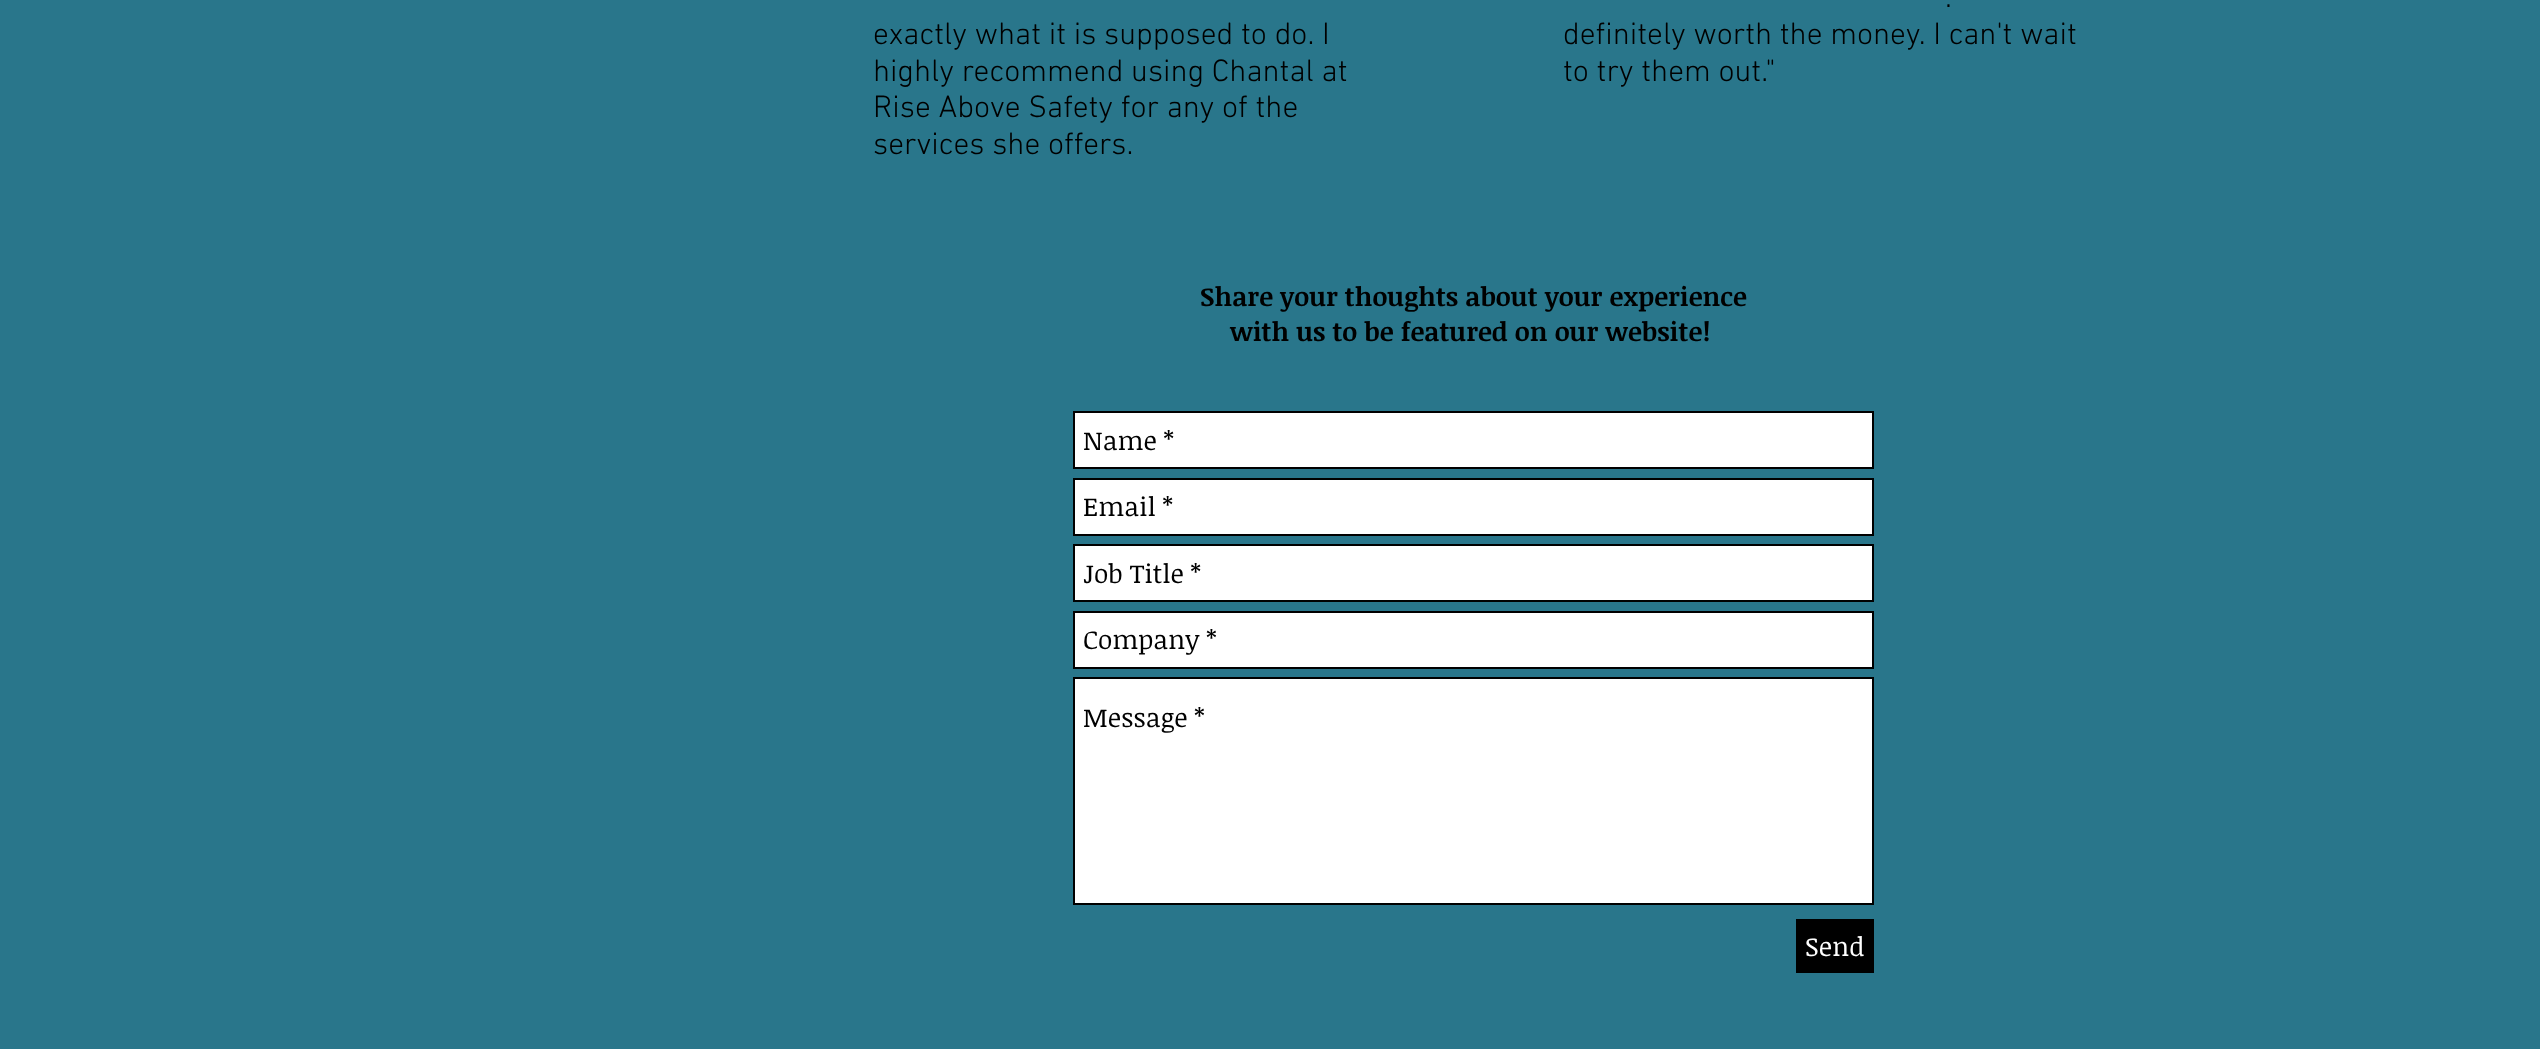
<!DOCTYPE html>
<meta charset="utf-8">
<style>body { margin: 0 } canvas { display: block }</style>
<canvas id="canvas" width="2540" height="1049"></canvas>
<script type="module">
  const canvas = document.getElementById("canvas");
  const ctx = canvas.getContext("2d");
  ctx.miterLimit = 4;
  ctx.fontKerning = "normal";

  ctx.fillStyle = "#29768b";
  ctx.fillRect(0, 0, 2540, 1049);
  ctx.font = "300 31.5px 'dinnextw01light'";
  ctx.fillStyle = "#000000";
  ctx.fillText("exactly what it is supposed to do. I", 873, 44);
  ctx.fillText("highly recommend using Chantal at", 873, 81);
  ctx.fillText("Rise Above Safety for any of the", 873, 117);
  ctx.fillText("services she offers.", 873, 154);
  ctx.fillText(".", 1945, 7);
  ctx.fillText("definitely worth the money. I can't wait", 1563, 44);
  ctx.fillText("to try them out.\"", 1563, 81);
  ctx.font = "bold 26.25px Noticia Text";
  ctx.fillText("Share your thoughts about your experience", 1200, 306);
  ctx.fillText("with us to be featured on our website!", 1230, 341);
  ctx.fillStyle = "#ffffff";
  ctx.beginPath();
  ctx.rect(1074, 412, 799, 56);
  ctx.fill();
  ctx.strokeStyle = "#000000";
  ctx.lineWidth = 2;
  ctx.stroke();
  ctx.font = "26.25px Noticia Text";
  ctx.fillStyle = "#000000";
  ctx.fillText("Name *", 1083, 450);
  ctx.fillStyle = "#ffffff";
  ctx.beginPath();
  ctx.rect(1074, 479, 799, 56);
  ctx.fill();
  ctx.stroke();
  ctx.fillStyle = "#000000";
  ctx.fillText("Email *", 1083, 516);
  ctx.fillStyle = "#ffffff";
  ctx.beginPath();
  ctx.rect(1074, 545, 799, 56);
  ctx.fill();
  ctx.stroke();
  ctx.fillStyle = "#000000";
  ctx.fillText("Job Title *", 1083, 583);
  ctx.fillStyle = "#ffffff";
  ctx.beginPath();
  ctx.rect(1074, 612, 799, 56);
  ctx.fill();
  ctx.stroke();
  ctx.fillStyle = "#000000";
  ctx.fillText("Company *", 1083, 649);
  ctx.fillStyle = "#ffffff";
  ctx.beginPath();
  ctx.rect(1074, 678, 799, 226);
  ctx.fill();
  ctx.stroke();
  ctx.fillStyle = "#000000";
  ctx.fillText("Message *", 1083, 727);
  ctx.fillRect(1796, 919, 78, 54);
  ctx.fillStyle = "#ffffff";
  ctx.fillText("Send", 1805, 956);
</script>
